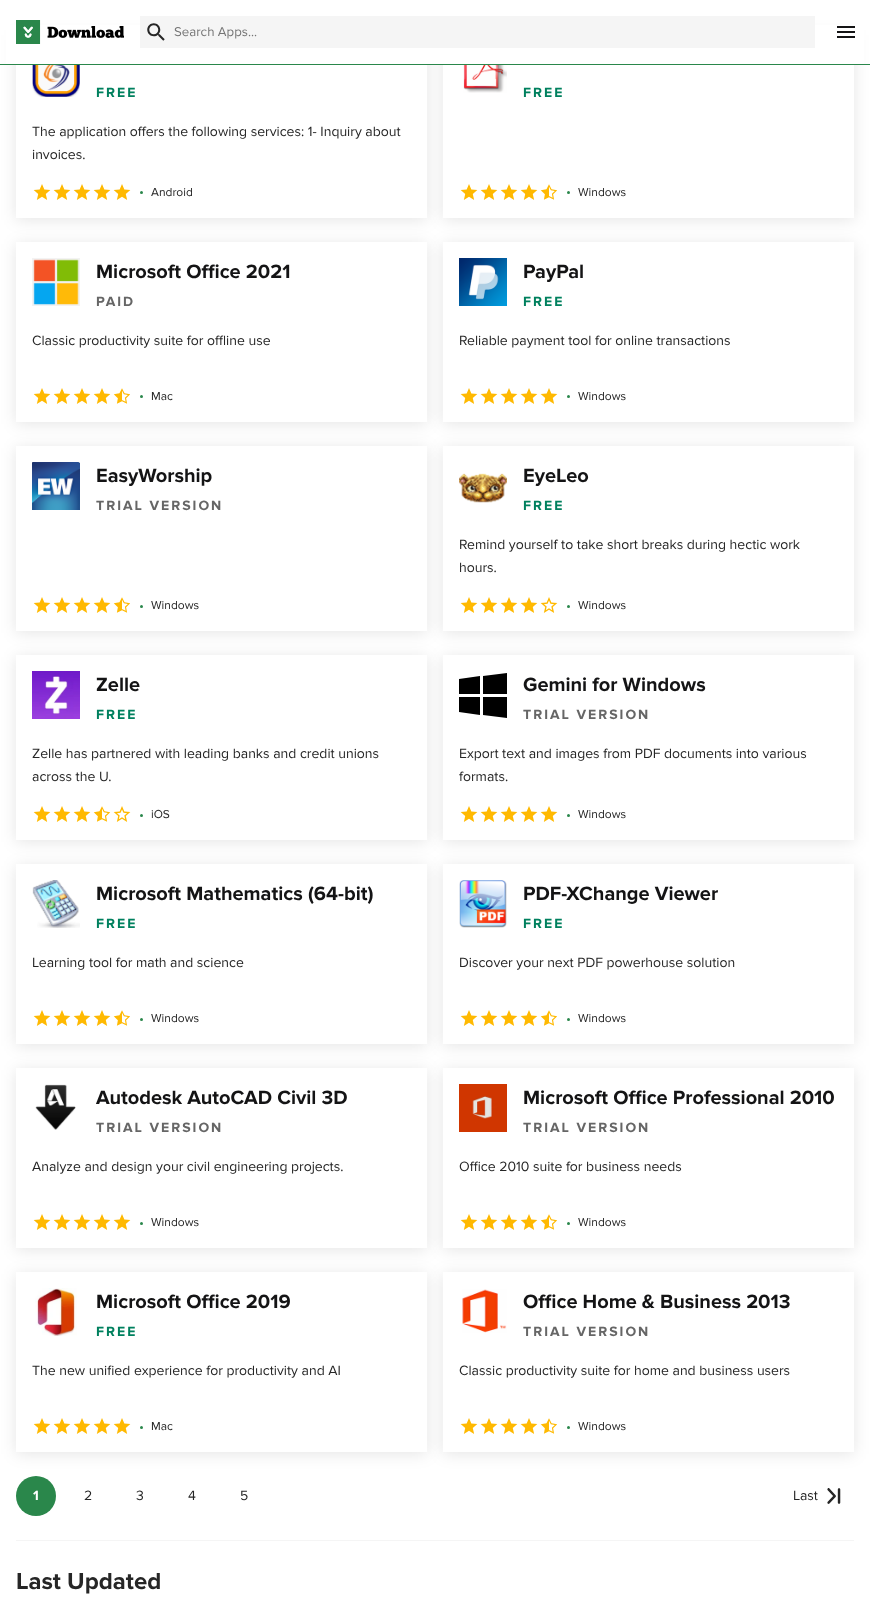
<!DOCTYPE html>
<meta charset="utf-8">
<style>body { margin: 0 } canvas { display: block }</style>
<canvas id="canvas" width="870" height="1606"></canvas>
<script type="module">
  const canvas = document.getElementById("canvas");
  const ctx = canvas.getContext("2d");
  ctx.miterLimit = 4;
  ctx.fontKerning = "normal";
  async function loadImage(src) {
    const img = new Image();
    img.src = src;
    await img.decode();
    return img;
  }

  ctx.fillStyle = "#ffffff";
  ctx.fillRect(0, 0, 870, 1606);
  ctx.save();
  ctx.beginPath();
  ctx.moveTo(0, 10);
  ctx.lineTo(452, 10);
  ctx.lineTo(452, 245);
  ctx.lineTo(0, 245);
  ctx.closePath();
  ctx.moveTo(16, 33);
  ctx.lineTo(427, 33);
  ctx.lineTo(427, 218);
  ctx.lineTo(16, 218);
  ctx.closePath();
  ctx.clip("evenodd");
  ctx.fillStyle = "rgba(0, 0, 0, 0.1)";
  ctx.filter = "blur(8px)";
  ctx.beginPath();
  ctx.rect(16, 35, 411, 185);
  ctx.fill();
  ctx.filter = "none";
  ctx.restore();
  ctx.save();
  ctx.beginPath();
  ctx.moveTo(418, 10);
  ctx.lineTo(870, 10);
  ctx.lineTo(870, 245);
  ctx.lineTo(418, 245);
  ctx.closePath();
  ctx.moveTo(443, 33);
  ctx.lineTo(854, 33);
  ctx.lineTo(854, 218);
  ctx.lineTo(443, 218);
  ctx.closePath();
  ctx.clip("evenodd");
  ctx.fillStyle = "rgba(0, 0, 0, 0.1)";
  ctx.filter = "blur(8px)";
  ctx.beginPath();
  ctx.rect(443, 35, 411, 185);
  ctx.fill();
  ctx.filter = "none";
  ctx.restore();
  ctx.fillRect(6, 25, 858, 39);
  ctx.fillStyle = "#2a874b";
  ctx.fillRect(0, 64, 870, 1);
  ctx.drawImage(await loadImage("img1.png"), 16, 20, 108, 24);
  ctx.fillStyle = "#f5f5f5";
  ctx.fillRect(140, 16, 675, 32);
  ctx.drawImage(await loadImage("img2.png"), 147, 23, 18, 18);
  ctx.font = "13.25px Proxima Nova";
  ctx.fillStyle = "#757575";
  ctx.fillText("Search Apps...", 174, 36);
  ctx.drawImage(await loadImage("img3.png"), 837, 26, 18, 12);
  ctx.drawImage(await loadImage("img4.png"), 32, 65, 48, 32);
  ctx.letterSpacing = "2px";
  ctx.font = "bold 14px Proxima Nova";
  ctx.fillStyle = "#00805e";
  ctx.fillText("FREE", 96, 97);
  ctx.letterSpacing = "0px";
  ctx.font = "14px Proxima Nova";
  ctx.fillStyle = "#262626";
  ctx.fillText("The application offers the following services: 1- Inquiry about", 32, 136);
  ctx.fillText("invoices.", 32, 159);
  ctx.drawImage(await loadImage("img5.png"), 33, 184, 98, 16);
  ctx.fillStyle = "#2a874b";
  ctx.beginPath();
  ctx.arc(141.5, 192.5, 1.5, 0, Math.PI * 2);
  ctx.fill();
  ctx.font = "12px Proxima Nova";
  ctx.fillStyle = "#262626";
  ctx.fillText("Android", 151, 196);
  ctx.drawImage(await loadImage("img6.png"), 463, 65, 44, 28);
  ctx.letterSpacing = "2px";
  ctx.font = "bold 14px Proxima Nova";
  ctx.fillStyle = "#00805e";
  ctx.fillText("FREE", 523, 97);
  ctx.drawImage(await loadImage("img7.png"), 460, 184, 97, 16);
  ctx.fillStyle = "#2a874b";
  ctx.beginPath();
  ctx.arc(568.5, 192.5, 1.5, 0, Math.PI * 2);
  ctx.fill();
  ctx.letterSpacing = "0px";
  ctx.font = "12px Proxima Nova";
  ctx.fillStyle = "#262626";
  ctx.fillText("Windows", 578, 196);
  ctx.save();
  ctx.beginPath();
  ctx.moveTo(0, 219);
  ctx.lineTo(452, 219);
  ctx.lineTo(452, 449);
  ctx.lineTo(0, 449);
  ctx.closePath();
  ctx.moveTo(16, 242);
  ctx.lineTo(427, 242);
  ctx.lineTo(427, 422);
  ctx.lineTo(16, 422);
  ctx.closePath();
  ctx.clip("evenodd");
  ctx.fillStyle = "rgba(0, 0, 0, 0.1)";
  ctx.filter = "blur(8px)";
  ctx.beginPath();
  ctx.rect(16, 244, 411, 180);
  ctx.fill();
  ctx.filter = "none";
  ctx.restore();
  ctx.drawImage(await loadImage("img8.png"), 32, 258, 48, 48);
  ctx.font = "bold 20px Proxima Nova";
  ctx.fillStyle = "#141415";
  ctx.fillText("Microsoft Office 2021", 96, 278);
  ctx.letterSpacing = "2px";
  ctx.font = "bold 14px Proxima Nova";
  ctx.fillStyle = "#666666";
  ctx.fillText("PAID", 96, 306);
  ctx.letterSpacing = "0px";
  ctx.font = "14px Proxima Nova";
  ctx.fillStyle = "#262626";
  ctx.fillText("Classic productivity suite for offline use", 32, 345);
  ctx.drawImage(await loadImage("img9.png"), 33, 388, 97, 16);
  ctx.fillStyle = "#2a874b";
  ctx.beginPath();
  ctx.arc(141.5, 396.5, 1.5, 0, Math.PI * 2);
  ctx.fill();
  ctx.font = "12px Proxima Nova";
  ctx.fillStyle = "#262626";
  ctx.fillText("Mac", 151, 400);
  ctx.save();
  ctx.beginPath();
  ctx.moveTo(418, 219);
  ctx.lineTo(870, 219);
  ctx.lineTo(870, 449);
  ctx.lineTo(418, 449);
  ctx.closePath();
  ctx.moveTo(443, 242);
  ctx.lineTo(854, 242);
  ctx.lineTo(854, 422);
  ctx.lineTo(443, 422);
  ctx.closePath();
  ctx.clip("evenodd");
  ctx.fillStyle = "rgba(0, 0, 0, 0.1)";
  ctx.filter = "blur(8px)";
  ctx.beginPath();
  ctx.rect(443, 244, 411, 180);
  ctx.fill();
  ctx.filter = "none";
  ctx.restore();
  ctx.drawImage(await loadImage("img10.png"), 459, 258, 48, 48);
  ctx.font = "bold 20px Proxima Nova";
  ctx.fillStyle = "#141415";
  ctx.fillText("PayPal", 523, 278);
  ctx.letterSpacing = "2px";
  ctx.font = "bold 14px Proxima Nova";
  ctx.fillStyle = "#00805e";
  ctx.fillText("FREE", 523, 306);
  ctx.letterSpacing = "0px";
  ctx.font = "14px Proxima Nova";
  ctx.fillStyle = "#262626";
  ctx.fillText("Reliable payment tool for online transactions", 459, 345);
  ctx.drawImage(await loadImage("img11.png"), 460, 388, 98, 16);
  ctx.fillStyle = "#2a874b";
  ctx.beginPath();
  ctx.arc(568.5, 396.5, 1.5, 0, Math.PI * 2);
  ctx.fill();
  ctx.font = "12px Proxima Nova";
  ctx.fillStyle = "#262626";
  ctx.fillText("Windows", 578, 400);
  ctx.save();
  ctx.beginPath();
  ctx.moveTo(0, 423);
  ctx.lineTo(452, 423);
  ctx.lineTo(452, 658);
  ctx.lineTo(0, 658);
  ctx.closePath();
  ctx.moveTo(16, 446);
  ctx.lineTo(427, 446);
  ctx.lineTo(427, 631);
  ctx.lineTo(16, 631);
  ctx.closePath();
  ctx.clip("evenodd");
  ctx.fillStyle = "rgba(0, 0, 0, 0.1)";
  ctx.filter = "blur(8px)";
  ctx.beginPath();
  ctx.rect(16, 448, 411, 185);
  ctx.fill();
  ctx.filter = "none";
  ctx.restore();
  ctx.drawImage(await loadImage("img12.png"), 32, 462, 48, 48);
  ctx.font = "bold 20px Proxima Nova";
  ctx.fillStyle = "#141415";
  ctx.fillText("EasyWorship", 96, 482);
  ctx.letterSpacing = "2px";
  ctx.font = "bold 14px Proxima Nova";
  ctx.fillStyle = "#666666";
  ctx.fillText("TRIAL VERSION", 96, 510);
  ctx.drawImage(await loadImage("img9.png"), 33, 597, 97, 16);
  ctx.fillStyle = "#2a874b";
  ctx.beginPath();
  ctx.arc(141.5, 606.5, 1.5, 0, Math.PI * 2);
  ctx.fill();
  ctx.letterSpacing = "0px";
  ctx.font = "12px Proxima Nova";
  ctx.fillStyle = "#262626";
  ctx.fillText("Windows", 151, 609);
  ctx.save();
  ctx.beginPath();
  ctx.moveTo(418, 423);
  ctx.lineTo(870, 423);
  ctx.lineTo(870, 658);
  ctx.lineTo(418, 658);
  ctx.closePath();
  ctx.moveTo(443, 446);
  ctx.lineTo(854, 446);
  ctx.lineTo(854, 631);
  ctx.lineTo(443, 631);
  ctx.closePath();
  ctx.clip("evenodd");
  ctx.fillStyle = "rgba(0, 0, 0, 0.1)";
  ctx.filter = "blur(8px)";
  ctx.beginPath();
  ctx.rect(443, 448, 411, 185);
  ctx.fill();
  ctx.filter = "none";
  ctx.restore();
  ctx.drawImage(await loadImage("img13.png"), 459, 473, 48, 30);
  ctx.font = "bold 20px Proxima Nova";
  ctx.fillStyle = "#141415";
  ctx.fillText("EyeLeo", 523, 482);
  ctx.letterSpacing = "2px";
  ctx.font = "bold 14px Proxima Nova";
  ctx.fillStyle = "#00805e";
  ctx.fillText("FREE", 523, 510);
  ctx.letterSpacing = "0px";
  ctx.font = "14px Proxima Nova";
  ctx.fillStyle = "#262626";
  ctx.fillText("Remind yourself to take short breaks during hectic work", 459, 549);
  ctx.fillText("hours.", 459, 572);
  ctx.drawImage(await loadImage("img14.png"), 460, 597, 98, 16);
  ctx.fillStyle = "#2a874b";
  ctx.beginPath();
  ctx.arc(568.5, 606.5, 1.5, 0, Math.PI * 2);
  ctx.fill();
  ctx.font = "12px Proxima Nova";
  ctx.fillStyle = "#262626";
  ctx.fillText("Windows", 578, 609);
  ctx.save();
  ctx.beginPath();
  ctx.moveTo(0, 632);
  ctx.lineTo(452, 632);
  ctx.lineTo(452, 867);
  ctx.lineTo(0, 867);
  ctx.closePath();
  ctx.moveTo(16, 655);
  ctx.lineTo(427, 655);
  ctx.lineTo(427, 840);
  ctx.lineTo(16, 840);
  ctx.closePath();
  ctx.clip("evenodd");
  ctx.fillStyle = "rgba(0, 0, 0, 0.1)";
  ctx.filter = "blur(8px)";
  ctx.beginPath();
  ctx.rect(16, 657, 411, 185);
  ctx.fill();
  ctx.filter = "none";
  ctx.restore();
  ctx.drawImage(await loadImage("img15.png"), 32, 671, 48, 48);
  ctx.font = "bold 20px Proxima Nova";
  ctx.fillStyle = "#141415";
  ctx.fillText("Zelle", 96, 691);
  ctx.letterSpacing = "2px";
  ctx.font = "bold 14px Proxima Nova";
  ctx.fillStyle = "#00805e";
  ctx.fillText("FREE", 96, 719);
  ctx.letterSpacing = "0px";
  ctx.font = "14px Proxima Nova";
  ctx.fillStyle = "#262626";
  ctx.fillText("Zelle has partnered with leading banks and credit unions", 32, 758);
  ctx.fillText("across the U.", 32, 781);
  ctx.drawImage(await loadImage("img16.png"), 33, 806, 98, 16);
  ctx.fillStyle = "#2a874b";
  ctx.beginPath();
  ctx.arc(141.5, 815.5, 1.5, 0, Math.PI * 2);
  ctx.fill();
  ctx.font = "12px Proxima Nova";
  ctx.fillStyle = "#262626";
  ctx.fillText("iOS", 151, 818);
  ctx.save();
  ctx.beginPath();
  ctx.moveTo(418, 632);
  ctx.lineTo(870, 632);
  ctx.lineTo(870, 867);
  ctx.lineTo(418, 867);
  ctx.closePath();
  ctx.moveTo(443, 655);
  ctx.lineTo(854, 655);
  ctx.lineTo(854, 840);
  ctx.lineTo(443, 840);
  ctx.closePath();
  ctx.clip("evenodd");
  ctx.fillStyle = "rgba(0, 0, 0, 0.1)";
  ctx.filter = "blur(8px)";
  ctx.beginPath();
  ctx.rect(443, 657, 411, 185);
  ctx.fill();
  ctx.filter = "none";
  ctx.restore();
  ctx.fillStyle = "#000000";
  ctx.beginPath();
  ctx.moveTo(483, 694);
  ctx.lineTo(483, 676);
  ctx.lineTo(507, 673);
  ctx.lineTo(507, 694);
  ctx.closePath();
  ctx.moveTo(459, 694);
  ctx.lineTo(459, 679);
  ctx.lineTo(480, 676);
  ctx.lineTo(480, 694);
  ctx.closePath();
  ctx.moveTo(483, 697);
  ctx.lineTo(483, 715);
  ctx.lineTo(507, 718);
  ctx.lineTo(507, 697);
  ctx.closePath();
  ctx.moveTo(459, 712);
  ctx.lineTo(459, 697);
  ctx.lineTo(480, 697);
  ctx.lineTo(480, 715);
  ctx.closePath();
  ctx.fill();
  ctx.font = "bold 20px Proxima Nova";
  ctx.fillStyle = "#141415";
  ctx.fillText("Gemini for Windows", 523, 691);
  ctx.letterSpacing = "2px";
  ctx.font = "bold 14px Proxima Nova";
  ctx.fillStyle = "#666666";
  ctx.fillText("TRIAL VERSION", 523, 719);
  ctx.letterSpacing = "0px";
  ctx.font = "14px Proxima Nova";
  ctx.fillStyle = "#262626";
  ctx.fillText("Export text and images from PDF documents into various", 459, 758);
  ctx.fillText("formats.", 459, 781);
  ctx.drawImage(await loadImage("img17.png"), 460, 806, 98, 16);
  ctx.fillStyle = "#2a874b";
  ctx.beginPath();
  ctx.arc(568.5, 815.5, 1.5, 0, Math.PI * 2);
  ctx.fill();
  ctx.font = "12px Proxima Nova";
  ctx.fillStyle = "#262626";
  ctx.fillText("Windows", 578, 818);
  ctx.save();
  ctx.beginPath();
  ctx.moveTo(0, 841);
  ctx.lineTo(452, 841);
  ctx.lineTo(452, 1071);
  ctx.lineTo(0, 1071);
  ctx.closePath();
  ctx.moveTo(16, 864);
  ctx.lineTo(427, 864);
  ctx.lineTo(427, 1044);
  ctx.lineTo(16, 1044);
  ctx.closePath();
  ctx.clip("evenodd");
  ctx.fillStyle = "rgba(0, 0, 0, 0.1)";
  ctx.filter = "blur(8px)";
  ctx.beginPath();
  ctx.rect(16, 866, 411, 180);
  ctx.fill();
  ctx.filter = "none";
  ctx.restore();
  ctx.drawImage(await loadImage("img18.png"), 32, 880, 48, 48);
  ctx.font = "bold 20px Proxima Nova";
  ctx.fillStyle = "#141415";
  ctx.fillText("Microsoft Mathematics (64-bit)", 96, 900);
  ctx.letterSpacing = "2px";
  ctx.font = "bold 14px Proxima Nova";
  ctx.fillStyle = "#00805e";
  ctx.fillText("FREE", 96, 928);
  ctx.letterSpacing = "0px";
  ctx.font = "14px Proxima Nova";
  ctx.fillStyle = "#262626";
  ctx.fillText("Learning tool for math and science", 32, 967);
  ctx.drawImage(await loadImage("img9.png"), 33, 1010, 97, 16);
  ctx.fillStyle = "#2a874b";
  ctx.beginPath();
  ctx.arc(141.5, 1019.5, 1.5, 0, Math.PI * 2);
  ctx.fill();
  ctx.font = "12px Proxima Nova";
  ctx.fillStyle = "#262626";
  ctx.fillText("Windows", 151, 1022);
  ctx.save();
  ctx.beginPath();
  ctx.moveTo(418, 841);
  ctx.lineTo(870, 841);
  ctx.lineTo(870, 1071);
  ctx.lineTo(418, 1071);
  ctx.closePath();
  ctx.moveTo(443, 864);
  ctx.lineTo(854, 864);
  ctx.lineTo(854, 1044);
  ctx.lineTo(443, 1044);
  ctx.closePath();
  ctx.clip("evenodd");
  ctx.fillStyle = "rgba(0, 0, 0, 0.1)";
  ctx.filter = "blur(8px)";
  ctx.beginPath();
  ctx.rect(443, 866, 411, 180);
  ctx.fill();
  ctx.filter = "none";
  ctx.restore();
  ctx.drawImage(await loadImage("img19.png"), 459, 880, 48, 48);
  ctx.font = "bold 20px Proxima Nova";
  ctx.fillStyle = "#141415";
  ctx.fillText("PDF-XChange Viewer", 523, 900);
  ctx.letterSpacing = "2px";
  ctx.font = "bold 14px Proxima Nova";
  ctx.fillStyle = "#00805e";
  ctx.fillText("FREE", 523, 928);
  ctx.letterSpacing = "0px";
  ctx.font = "14px Proxima Nova";
  ctx.fillStyle = "#262626";
  ctx.fillText("Discover your next PDF powerhouse solution", 459, 967);
  ctx.drawImage(await loadImage("img7.png"), 460, 1010, 97, 16);
  ctx.fillStyle = "#2a874b";
  ctx.beginPath();
  ctx.arc(568.5, 1019.5, 1.5, 0, Math.PI * 2);
  ctx.fill();
  ctx.font = "12px Proxima Nova";
  ctx.fillStyle = "#262626";
  ctx.fillText("Windows", 578, 1022);
  ctx.save();
  ctx.beginPath();
  ctx.moveTo(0, 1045);
  ctx.lineTo(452, 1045);
  ctx.lineTo(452, 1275);
  ctx.lineTo(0, 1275);
  ctx.closePath();
  ctx.moveTo(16, 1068);
  ctx.lineTo(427, 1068);
  ctx.lineTo(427, 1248);
  ctx.lineTo(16, 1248);
  ctx.closePath();
  ctx.clip("evenodd");
  ctx.fillStyle = "rgba(0, 0, 0, 0.1)";
  ctx.filter = "blur(8px)";
  ctx.beginPath();
  ctx.rect(16, 1070, 411, 180);
  ctx.fill();
  ctx.filter = "none";
  ctx.restore();
  ctx.drawImage(await loadImage("img20.png"), 35, 1084, 41, 46);
  ctx.font = "bold 20px Proxima Nova";
  ctx.fillStyle = "#141415";
  ctx.fillText("Autodesk AutoCAD Civil 3D", 96, 1104);
  ctx.letterSpacing = "2px";
  ctx.font = "bold 14px Proxima Nova";
  ctx.fillStyle = "#666666";
  ctx.fillText("TRIAL VERSION", 96, 1132);
  ctx.letterSpacing = "0px";
  ctx.font = "14px Proxima Nova";
  ctx.fillStyle = "#262626";
  ctx.fillText("Analyze and design your civil engineering projects.", 32, 1171);
  ctx.drawImage(await loadImage("img5.png"), 33, 1214, 98, 16);
  ctx.fillStyle = "#2a874b";
  ctx.beginPath();
  ctx.arc(141.5, 1223.5, 1.5, 0, Math.PI * 2);
  ctx.fill();
  ctx.font = "12px Proxima Nova";
  ctx.fillStyle = "#262626";
  ctx.fillText("Windows", 151, 1226);
  ctx.save();
  ctx.beginPath();
  ctx.moveTo(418, 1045);
  ctx.lineTo(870, 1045);
  ctx.lineTo(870, 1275);
  ctx.lineTo(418, 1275);
  ctx.closePath();
  ctx.moveTo(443, 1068);
  ctx.lineTo(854, 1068);
  ctx.lineTo(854, 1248);
  ctx.lineTo(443, 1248);
  ctx.closePath();
  ctx.clip("evenodd");
  ctx.fillStyle = "rgba(0, 0, 0, 0.1)";
  ctx.filter = "blur(8px)";
  ctx.beginPath();
  ctx.rect(443, 1070, 411, 180);
  ctx.fill();
  ctx.filter = "none";
  ctx.restore();
  ctx.drawImage(await loadImage("img21.png"), 459, 1084, 48, 48);
  ctx.font = "bold 20px Proxima Nova";
  ctx.fillStyle = "#141415";
  ctx.fillText("Microsoft Office Professional 2010", 523, 1104);
  ctx.letterSpacing = "2px";
  ctx.font = "bold 14px Proxima Nova";
  ctx.fillStyle = "#666666";
  ctx.fillText("TRIAL VERSION", 523, 1132);
  ctx.letterSpacing = "0px";
  ctx.font = "14px Proxima Nova";
  ctx.fillStyle = "#262626";
  ctx.fillText("Office 2010 suite for business needs", 459, 1171);
  ctx.drawImage(await loadImage("img7.png"), 460, 1214, 97, 16);
  ctx.fillStyle = "#2a874b";
  ctx.beginPath();
  ctx.arc(568.5, 1223.5, 1.5, 0, Math.PI * 2);
  ctx.fill();
  ctx.font = "12px Proxima Nova";
  ctx.fillStyle = "#262626";
  ctx.fillText("Windows", 578, 1226);
  ctx.fillStyle = "#2a874b";
  ctx.beginPath();
  ctx.arc(36, 1496, 20, 0, Math.PI * 2);
  ctx.fill();
  ctx.save();
  ctx.beginPath();
  ctx.moveTo(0, 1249);
  ctx.lineTo(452, 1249);
  ctx.lineTo(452, 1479);
  ctx.lineTo(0, 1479);
  ctx.closePath();
  ctx.moveTo(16, 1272);
  ctx.lineTo(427, 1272);
  ctx.lineTo(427, 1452);
  ctx.lineTo(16, 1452);
  ctx.closePath();
  ctx.clip("evenodd");
  ctx.fillStyle = "rgba(0, 0, 0, 0.1)";
  ctx.filter = "blur(8px)";
  ctx.beginPath();
  ctx.rect(16, 1274, 411, 180);
  ctx.fill();
  ctx.filter = "none";
  ctx.restore();
  ctx.drawImage(await loadImage("img22.png"), 35, 1288, 42, 48);
  ctx.font = "bold 20px Proxima Nova";
  ctx.fillStyle = "#141415";
  ctx.fillText("Microsoft Office 2019", 96, 1308);
  ctx.letterSpacing = "2px";
  ctx.font = "bold 14px Proxima Nova";
  ctx.fillStyle = "#00805e";
  ctx.fillText("FREE", 96, 1336);
  ctx.letterSpacing = "0px";
  ctx.font = "14px Proxima Nova";
  ctx.fillStyle = "#262626";
  ctx.fillText("The new unified experience for productivity and AI", 32, 1375);
  ctx.drawImage(await loadImage("img5.png"), 33, 1418, 98, 16);
  ctx.fillStyle = "#2a874b";
  ctx.beginPath();
  ctx.arc(141.5, 1427.5, 1.5, 0, Math.PI * 2);
  ctx.fill();
  ctx.font = "12px Proxima Nova";
  ctx.fillStyle = "#262626";
  ctx.fillText("Mac", 151, 1430);
  ctx.save();
  ctx.beginPath();
  ctx.moveTo(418, 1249);
  ctx.lineTo(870, 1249);
  ctx.lineTo(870, 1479);
  ctx.lineTo(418, 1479);
  ctx.closePath();
  ctx.moveTo(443, 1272);
  ctx.lineTo(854, 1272);
  ctx.lineTo(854, 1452);
  ctx.lineTo(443, 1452);
  ctx.closePath();
  ctx.clip("evenodd");
  ctx.fillStyle = "rgba(0, 0, 0, 0.1)";
  ctx.filter = "blur(8px)";
  ctx.beginPath();
  ctx.rect(443, 1274, 411, 180);
  ctx.fill();
  ctx.filter = "none";
  ctx.restore();
  ctx.drawImage(await loadImage("img23.png"), 462, 1289, 45, 44);
  ctx.font = "bold 20px Proxima Nova";
  ctx.fillStyle = "#141415";
  ctx.fillText("Office Home & Business 2013", 523, 1308);
  ctx.letterSpacing = "2px";
  ctx.font = "bold 14px Proxima Nova";
  ctx.fillStyle = "#666666";
  ctx.fillText("TRIAL VERSION", 523, 1336);
  ctx.letterSpacing = "0px";
  ctx.font = "14px Proxima Nova";
  ctx.fillStyle = "#262626";
  ctx.fillText("Classic productivity suite for home and business users", 459, 1375);
  ctx.drawImage(await loadImage("img7.png"), 460, 1418, 97, 16);
  ctx.fillStyle = "#2a874b";
  ctx.beginPath();
  ctx.arc(568.5, 1427.5, 1.5, 0, Math.PI * 2);
  ctx.fill();
  ctx.font = "12px Proxima Nova";
  ctx.fillStyle = "#262626";
  ctx.fillText("Windows", 578, 1430);
  ctx.font = "bold 14px Proxima Nova";
  ctx.fillStyle = "#ffffff";
  ctx.fillText("1", 33, 1500);
  ctx.font = "14px Proxima Nova";
  ctx.fillStyle = "#262626";
  ctx.fillText("2", 84, 1500);
  ctx.fillText("3", 136, 1500);
  ctx.fillText("4", 188, 1500);
  ctx.fillText("5", 240, 1500);
  ctx.fillText("Last", 793, 1500);
  ctx.drawImage(await loadImage("img24.png"), 827, 1488, 14, 16);
  ctx.fillStyle = "#f5f5f5";
  ctx.fillRect(16, 1540, 838, 1);
  ctx.font = "bold 24px Proxima Nova";
  ctx.fillStyle = "#262626";
  ctx.fillText("Last Updated", 16, 1589);
</script>
